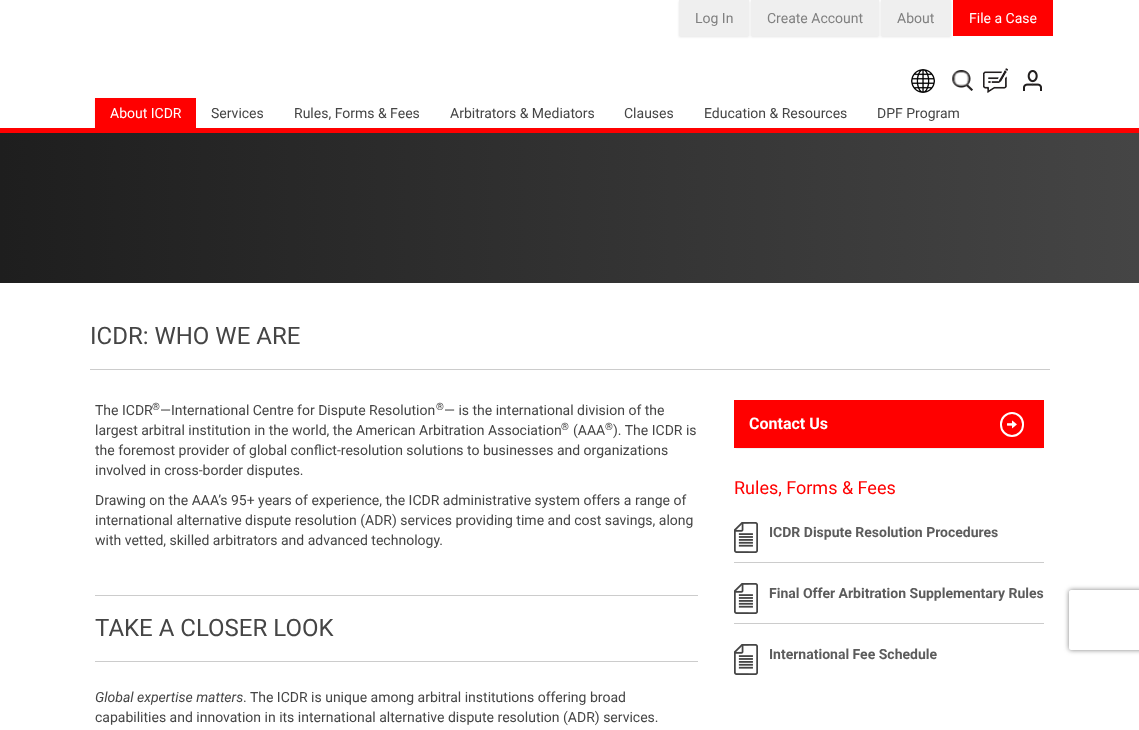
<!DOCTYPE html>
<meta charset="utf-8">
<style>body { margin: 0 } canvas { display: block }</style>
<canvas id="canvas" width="1139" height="730"></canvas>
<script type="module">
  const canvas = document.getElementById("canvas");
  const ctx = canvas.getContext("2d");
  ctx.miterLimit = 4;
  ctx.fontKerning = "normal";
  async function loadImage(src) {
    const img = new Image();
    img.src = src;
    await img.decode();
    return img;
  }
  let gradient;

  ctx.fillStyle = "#ffffff";
  ctx.fillRect(0, 0, 1139, 730);
  ctx.fillStyle = "#ff0000";
  ctx.fillRect(0, 128, 1139, 5);
  ctx.fillStyle = "rgba(0, 0, 0, 0.1)";
  ctx.filter = "blur(1px)";
  ctx.beginPath();
  ctx.rect(679, 1, 70, 36);
  ctx.fill();
  ctx.filter = "none";
  ctx.fillStyle = "#efefef";
  ctx.fillRect(679, 0, 70, 36);
  ctx.font = "14px Roboto";
  ctx.fillStyle = "#808080";
  ctx.fillText("Log In", 695, 23);
  ctx.fillStyle = "rgba(0, 0, 0, 0.1)";
  ctx.filter = "blur(1px)";
  ctx.beginPath();
  ctx.rect(751, 1, 128, 36);
  ctx.fill();
  ctx.filter = "none";
  ctx.fillStyle = "#efefef";
  ctx.fillRect(751, 0, 128, 36);
  ctx.fillStyle = "#808080";
  ctx.fillText("Create Account", 767, 23);
  ctx.fillStyle = "rgba(0, 0, 0, 0.1)";
  ctx.filter = "blur(1px)";
  ctx.beginPath();
  ctx.rect(881, 1, 70, 36);
  ctx.fill();
  ctx.filter = "none";
  ctx.fillStyle = "#efefef";
  ctx.fillRect(881, 0, 70, 36);
  ctx.fillStyle = "#808080";
  ctx.fillText("About", 897, 23);
  ctx.fillStyle = "#ff0000";
  ctx.fillRect(953, 0, 100, 36);
  ctx.fillStyle = "#ffffff";
  ctx.fillText("File a Case", 969, 23);
  ctx.drawImage(await loadImage("img1.png"), 911, 69, 24, 24);
  ctx.drawImage(await loadImage("img2.png"), 952, 70, 21, 21);
  ctx.drawImage(await loadImage("img3.png"), 983, 68, 25, 25);
  ctx.drawImage(await loadImage("img4.png"), 1023, 70, 19, 21);
  ctx.fillStyle = "rgba(255, 0, 0, 0.1)";
  ctx.filter = "blur(1px)";
  ctx.beginPath();
  ctx.rect(95, 99, 101, 30);
  ctx.fill();
  ctx.filter = "none";
  ctx.fillStyle = "#ff0000";
  ctx.fillRect(95, 98, 101, 30);
  ctx.fillStyle = "#ffffff";
  ctx.fillText("About ICDR", 110, 118);
  ctx.fillRect(196, 99, 1, 29);
  ctx.fillStyle = "#454545";
  ctx.fillText("Services", 211, 118);
  ctx.fillText("Rules, Forms & Fees", 294, 118);
  ctx.fillText("Arbitrators & Mediators", 450, 118);
  ctx.fillText("Clauses", 624, 118);
  ctx.fillText("Education & Resources", 704, 118);
  ctx.fillText("DPF Program", 877, 118);
  gradient = ctx.createLinearGradient(1139, 208, 0, 208);
  gradient.addColorStop(0, "#454545");
  gradient.addColorStop(1, "#1e1e1e");
  ctx.fillStyle = gradient;
  ctx.fillRect(0, 133, 1139, 150);
  ctx.fillStyle = "#cccccc";
  ctx.fillRect(90, 369, 960, 1);
  ctx.font = "24px Roboto";
  ctx.fillStyle = "#454545";
  ctx.fillText("ICDR: WHO WE ARE", 90, 344);
  ctx.font = "14px Roboto";
  ctx.fillText("The ICDR", 95, 415);
  ctx.font = "10px Roboto";
  ctx.fillText("®", 152, 410);
  ctx.font = "14px Roboto";
  ctx.fillText("—International Centre for Dispute Resolution", 160, 415);
  ctx.font = "10px Roboto";
  ctx.fillText("®", 436, 410);
  ctx.font = "14px Roboto";
  ctx.fillText("— is the international division of the", 444, 415);
  ctx.fillText("largest arbitral institution in the world, the American Arbitration Association", 95, 435);
  ctx.font = "10px Roboto";
  ctx.fillText("®", 561, 430);
  ctx.font = "14px Roboto";
  ctx.fillText("(AAA", 573, 435);
  ctx.font = "10px Roboto";
  ctx.fillText("®", 605, 430);
  ctx.font = "14px Roboto";
  ctx.fillText("). The ICDR is", 613, 435);
  ctx.fillText("the foremost provider of global conflict-resolution solutions to businesses and organizations", 95, 455);
  ctx.fillText("involved in cross-border disputes.", 95, 475);
  ctx.fillText("Drawing on the AAA’s 95+ years of experience, the ICDR administrative system offers a range of", 95, 505);
  ctx.fillText("international alternative dispute resolution (ADR) services providing time and cost savings, along", 95, 525);
  ctx.fillText("with vetted, skilled arbitrators and advanced technology.", 95, 545);
  ctx.fillStyle = "#cccccc";
  ctx.fillRect(95, 595, 603, 1);
  ctx.fillRect(95, 661, 603, 1);
  ctx.font = "24px Roboto";
  ctx.fillStyle = "#454545";
  ctx.fillText("TAKE A CLOSER LOOK", 95, 636);
  ctx.font = "italic 14px Roboto";
  ctx.fillText("Global expertise matters", 95, 702);
  ctx.font = "14px Roboto";
  ctx.fillText(". The ICDR is unique among arbitral institutions offering broad", 243, 702);
  ctx.fillText("capabilities and innovation in its international alternative dispute resolution (ADR) services.", 95, 722);
  ctx.fillStyle = "rgba(0, 0, 0, 0.05)";
  ctx.filter = "blur(0.5px)";
  ctx.beginPath();
  ctx.roundRect(734, 401, 310, 48, 4);
  ctx.fill();
  ctx.filter = "none";
  ctx.fillStyle = "#ff0000";
  ctx.fillRect(734, 400, 310, 48);
  ctx.font = "bold 16px Roboto";
  ctx.fillStyle = "#ffffff";
  ctx.fillText("Contact Us", 749, 429);
  ctx.beginPath();
  ctx.roundRect(1001, 413, 22, 23, 11);
  ctx.strokeStyle = "#ffffff";
  ctx.lineWidth = 2;
  ctx.stroke();
  ctx.drawImage(await loadImage("img5.png"), 1007, 420, 10, 9);
  ctx.font = "18px Roboto";
  ctx.fillStyle = "#ff0000";
  ctx.fillText("Rules, Forms & Fees", 734, 494);
  ctx.fillStyle = "#cccccc";
  ctx.fillRect(734, 562, 310, 1);
  ctx.drawImage(await loadImage("img6.png"), 734, 522, 24, 31);
  ctx.font = "bold 14px Roboto";
  ctx.fillStyle = "#5c5c5c";
  ctx.fillText("ICDR Dispute Resolution Procedures", 769, 537);
  ctx.fillStyle = "#cccccc";
  ctx.fillRect(734, 623, 310, 1);
  ctx.drawImage(await loadImage("img6.png"), 734, 583, 24, 31);
  ctx.fillStyle = "#5c5c5c";
  ctx.fillText("Final Offer Arbitration Supplementary Rules", 769, 598);
  ctx.drawImage(await loadImage("img6.png"), 734, 644, 24, 31);
  ctx.fillText("International Fee Schedule", 769, 659);
  ctx.save();
  ctx.beginPath();
  ctx.moveTo(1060, 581);
  ctx.lineTo(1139, 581);
  ctx.lineTo(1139, 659);
  ctx.lineTo(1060, 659);
  ctx.closePath();
  ctx.moveTo(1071, 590);
  ctx.lineTo(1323, 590);
  ctx.bezierCurveTo(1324, 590, 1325, 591, 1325, 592);
  ctx.lineTo(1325, 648);
  ctx.bezierCurveTo(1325, 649, 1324, 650, 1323, 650);
  ctx.lineTo(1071, 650);
  ctx.bezierCurveTo(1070, 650, 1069, 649, 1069, 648);
  ctx.lineTo(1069, 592);
  ctx.bezierCurveTo(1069, 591, 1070, 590, 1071, 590);
  ctx.closePath();
  ctx.clip("evenodd");
  ctx.fillStyle = "#808080";
  ctx.filter = "blur(2.5px)";
  ctx.beginPath();
  ctx.roundRect(1069, 590, 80, 60, 2);
  ctx.fill();
  ctx.filter = "none";
  ctx.restore();
</script>
